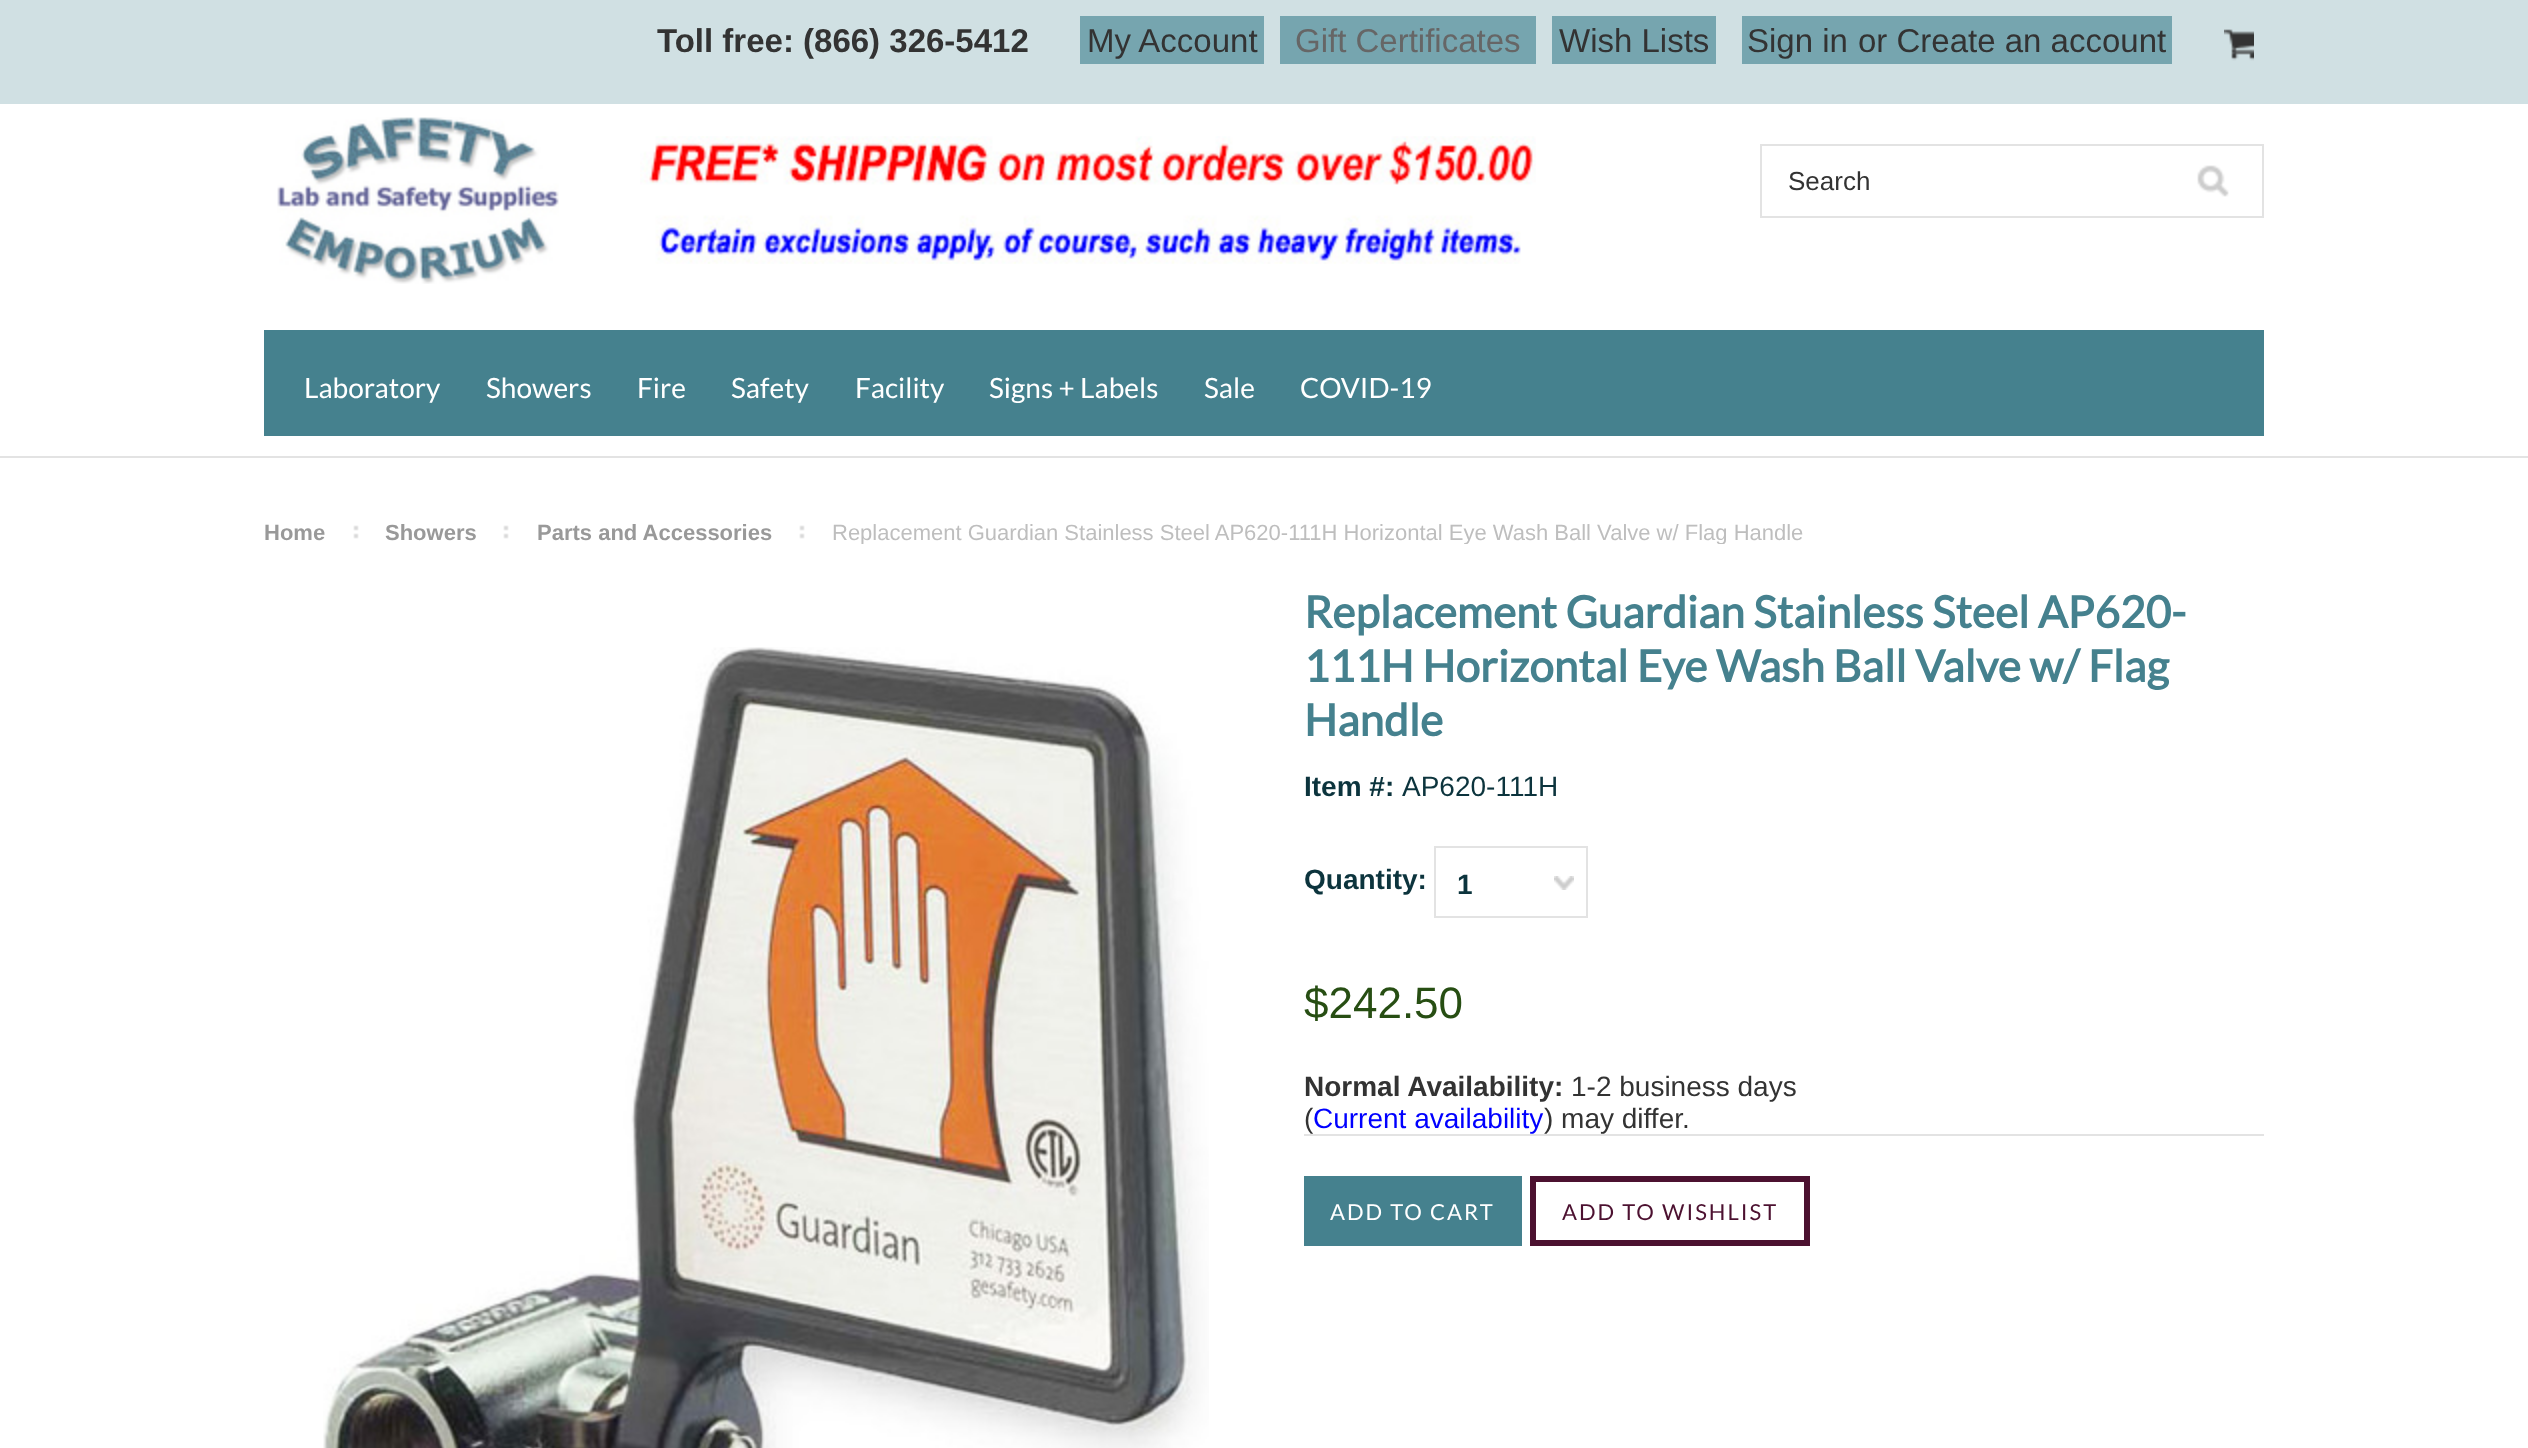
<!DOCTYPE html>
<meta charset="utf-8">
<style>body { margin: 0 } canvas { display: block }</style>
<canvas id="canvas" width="2528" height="1448"></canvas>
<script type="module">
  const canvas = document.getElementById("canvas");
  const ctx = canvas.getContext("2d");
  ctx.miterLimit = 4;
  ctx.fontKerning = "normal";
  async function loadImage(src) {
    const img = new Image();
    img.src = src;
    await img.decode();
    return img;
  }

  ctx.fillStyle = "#ffffff";
  ctx.fillRect(0, 0, 2528, 1448);
  ctx.fillStyle = "#e3e3e3";
  ctx.fillRect(0, 456, 2528, 2);
  ctx.fillStyle = "#d0e0e3";
  ctx.fillRect(0, 0, 2528, 104);
  ctx.font = "bold 33px Liberation Sans";
  ctx.fillStyle = "#333333";
  ctx.fillText("Toll free: (866) 326-5412", 657, 52);
  ctx.fillStyle = "#76a5af";
  ctx.fillRect(1080, 16, 184, 48);
  ctx.font = "33px Liberation Sans";
  ctx.fillStyle = "#333333";
  ctx.fillText("My Account", 1087, 52);
  ctx.fillStyle = "#76a5af";
  ctx.fillRect(1280, 16, 256, 48);
  ctx.fillStyle = "#666666";
  ctx.fillText("Gift Certificates", 1295, 52);
  ctx.fillStyle = "#76a5af";
  ctx.fillRect(1552, 16, 164, 48);
  ctx.fillStyle = "#333333";
  ctx.fillText("Wish Lists", 1559, 52);
  ctx.fillStyle = "#76a5af";
  ctx.fillRect(1742, 16, 430, 48);
  ctx.fillStyle = "#333333";
  ctx.fillText("Sign in", 1747, 52);
  ctx.fillText("or Create an account", 1858, 52);
  ctx.drawImage(await loadImage("img1.png"), 2224, 29, 30, 32);
  ctx.drawImage(await loadImage("img2.png"), 277, 117, 282, 167);
  ctx.drawImage(await loadImage("img3.png"), 640, 136, 896, 128);
  ctx.strokeStyle = "#e3e3e3";
  ctx.lineWidth = 2;
  ctx.strokeRect(1761, 145, 502, 72);
  ctx.font = "26px Liberation Sans";
  ctx.fillText("Search", 1788, 190);
  ctx.drawImage(await loadImage("img4.png"), 2197, 165, 32, 32);
  ctx.fillStyle = "#45818e";
  ctx.fillRect(264, 330, 2000, 106);
  ctx.font = "28px Lato";
  ctx.fillStyle = "#ffffff";
  ctx.fillText("Laboratory", 304, 398);
  ctx.fillText("Showers", 486, 398);
  ctx.fillText("Fire", 637, 398);
  ctx.fillText("Safety", 731, 398);
  ctx.fillText("Facility", 855, 398);
  ctx.fillText("Signs + Labels", 989, 398);
  ctx.fillText("Sale", 1204, 398);
  ctx.fillText("COVID-19", 1300, 398);
  ctx.drawImage(await loadImage("img5.png"), 353, 525, 6, 14);
  ctx.font = "bold 22px Liberation Sans";
  ctx.fillStyle = "#999999";
  ctx.fillText("Home", 264, 540);
  ctx.drawImage(await loadImage("img5.png"), 503, 525, 6, 14);
  ctx.fillText("Showers", 385, 540);
  ctx.drawImage(await loadImage("img5.png"), 799, 525, 6, 14);
  ctx.fillText("Parts and Accessories", 537, 540);
  ctx.save();
  ctx.beginPath();
  ctx.rect(264, 520, 2000, 24);
  ctx.clip();
  ctx.font = "22px Liberation Sans";
  ctx.fillStyle = "#bebebe";
  ctx.fillText("Replacement Guardian Stainless Steel AP620-111H Horizontal Eye Wash Ball Valve w/ Flag Handle", 832, 540);
  ctx.restore();
  ctx.drawImage(await loadImage("img6.png"), 323, 647, 886, 801);
  ctx.font = "bold 44px Lato";
  ctx.fillStyle = "#45818e";
  ctx.fillText("Replacement Guardian Stainless Steel AP620-", 1304, 628);
  ctx.fillText("111H Horizontal Eye Wash Ball Valve w/ Flag", 1304, 682);
  ctx.fillText("Handle", 1304, 736);
  ctx.font = "bold 28px Liberation Sans";
  ctx.fillStyle = "#0c343d";
  ctx.fillText("Item #:", 1304, 796);
  ctx.font = "28px Liberation Sans";
  ctx.fillText("AP620-111H", 1402, 796);
  ctx.font = "bold 28px Liberation Sans";
  ctx.fillText("Quantity:", 1304, 889);
  ctx.drawImage(await loadImage("img7.png"), 1554, 876, 20, 14);
  ctx.strokeRect(1435, 847, 152, 70);
  ctx.fillText("1", 1457, 894);
  ctx.font = "44px Liberation Sans";
  ctx.fillStyle = "#274e13";
  ctx.fillText("$242.50", 1304, 1018);
  ctx.font = "bold 28px Liberation Sans";
  ctx.fillStyle = "#333333";
  ctx.fillText("Normal Availability:", 1304, 1096);
  ctx.font = "28px Liberation Sans";
  ctx.fillText("1-2 business days", 1571, 1096);
  ctx.fillText("(", 1304, 1128);
  ctx.fillStyle = "#0000ff";
  ctx.fillText("Current availability", 1313, 1128);
  ctx.fillStyle = "#333333";
  ctx.fillText(") may differ.", 1544, 1128);
  ctx.fillStyle = "#e3e3e3";
  ctx.fillRect(1304, 1134, 960, 2);
  ctx.fillStyle = "#45818e";
  ctx.fillRect(1304, 1176, 218, 70);
  ctx.letterSpacing = "2px";
  ctx.font = "22px Lato";
  ctx.fillStyle = "#ffffff";
  ctx.fillText("ADD TO CART", 1330, 1220);
  ctx.strokeStyle = "#4c1130";
  ctx.lineWidth = 6;
  ctx.strokeRect(1533, 1179, 274, 64);
  ctx.fillStyle = "#4c1130";
  ctx.fillText("ADD TO WISHLIST", 1562, 1220);
</script>
